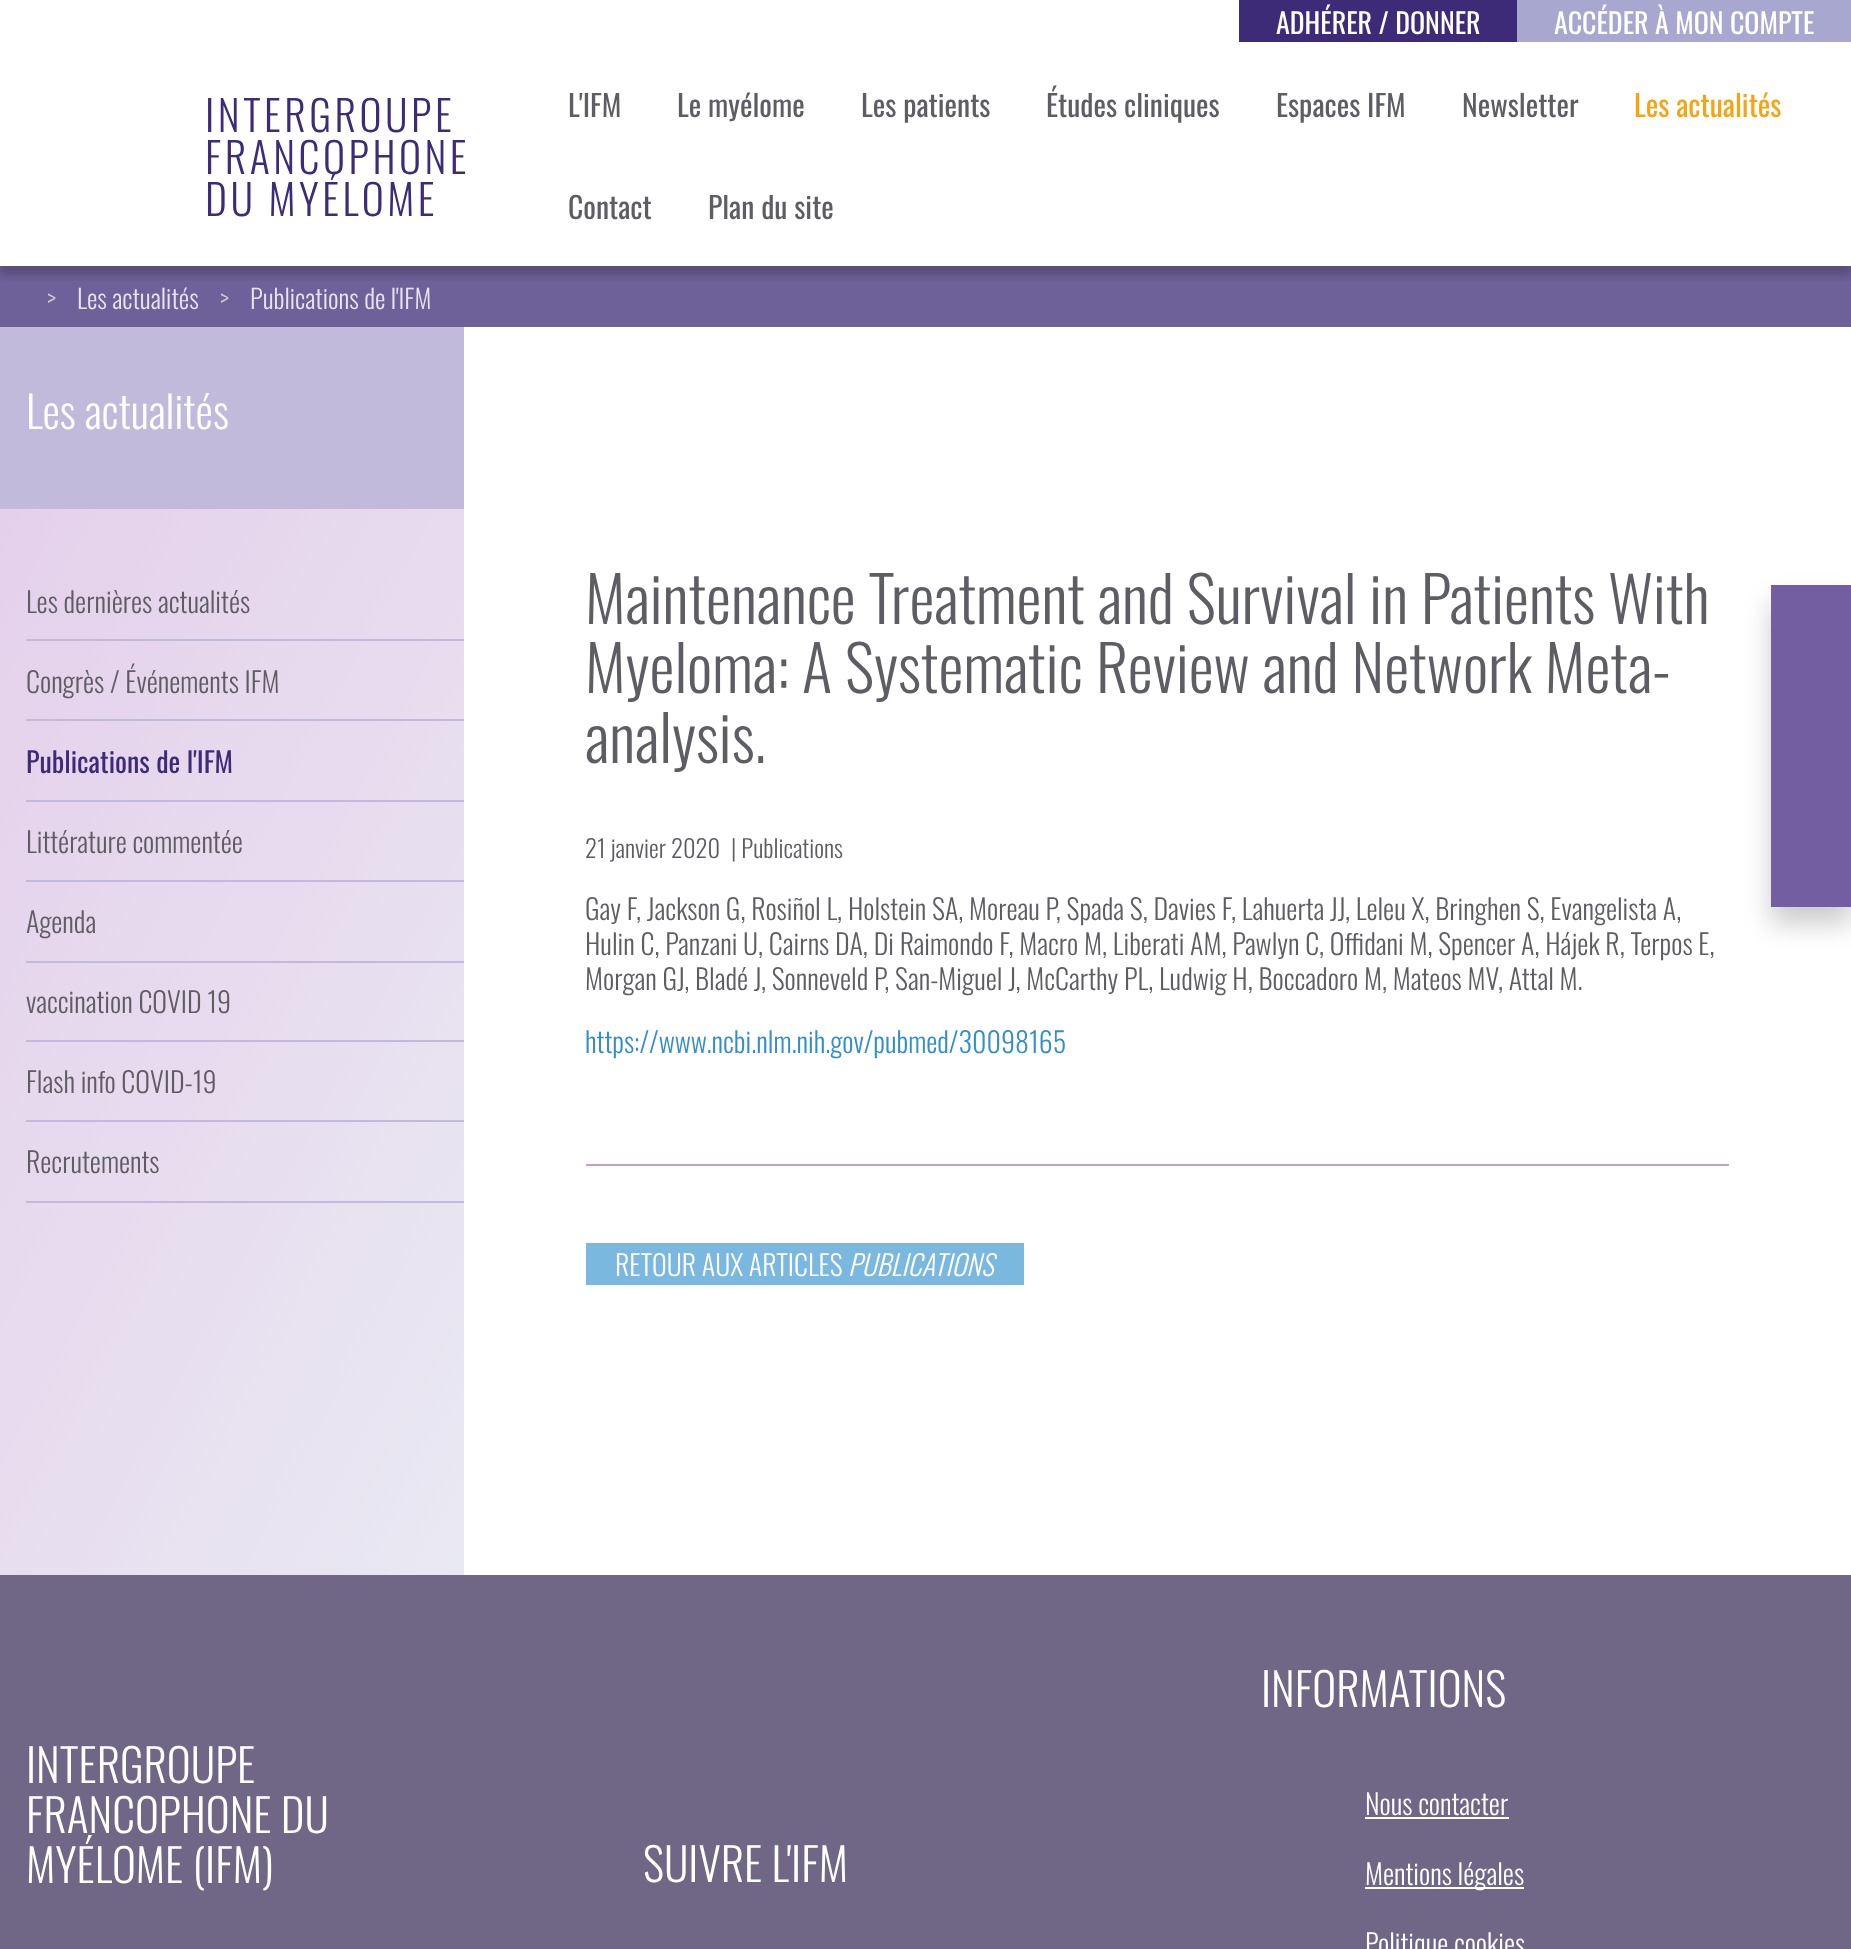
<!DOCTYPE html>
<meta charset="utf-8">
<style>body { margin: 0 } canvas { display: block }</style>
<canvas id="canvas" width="1851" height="1949"></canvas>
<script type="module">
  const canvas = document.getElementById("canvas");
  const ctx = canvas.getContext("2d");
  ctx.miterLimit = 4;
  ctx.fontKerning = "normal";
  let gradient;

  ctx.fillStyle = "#ffffff";
  ctx.fillRect(0, 0, 1851, 1949);
  ctx.fillStyle = "#3d2b77";
  ctx.fillRect(1239, 0, 278, 42);
  ctx.font = "28px Oswald";
  ctx.fillStyle = "#ffffff";
  ctx.fillText("ADHÉRER / DONNER", 1276, 34);
  ctx.fillStyle = "#a8a7cf";
  ctx.fillRect(1517, 0, 334, 42);
  ctx.fillStyle = "#ffffff";
  ctx.fillText("ACCÉDER À MON COMPTE", 1554, 34);
  ctx.fillStyle = "#6e6099";
  ctx.fillRect(0, 266, 1851, 61);
  ctx.save();
  ctx.beginPath();
  ctx.rect(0, 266, 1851, 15);
  ctx.clip();
  ctx.fillStyle = "rgba(0, 0, 0, 0.2)";
  ctx.filter = "blur(4.5px)";
  ctx.beginPath();
  ctx.rect(0, 51, 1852, 224);
  ctx.fill();
  ctx.filter = "none";
  ctx.restore();
  ctx.letterSpacing = "3.5px";
  ctx.font = "300 42px Oswald";
  ctx.fillStyle = "#3d2b77";
  ctx.fillText("INTERGROUPE", 205, 132);
  ctx.fillText("FRANCOPHONE", 205, 174);
  ctx.fillText("DU MYÉLOME", 205, 216);
  ctx.letterSpacing = "0px";
  ctx.font = "29.75px Oswald";
  ctx.fillStyle = "#5f5d64";
  ctx.fillText("L'IFM", 568, 117);
  ctx.fillText("Le myélome", 677, 117);
  ctx.fillText("Les patients", 861, 117);
  ctx.fillText("Études cliniques", 1046, 117);
  ctx.fillText("Espaces IFM", 1276, 117);
  ctx.fillText("Newsletter", 1462, 117);
  ctx.fillStyle = "#f5a414";
  ctx.fillText("Les actualités", 1634, 117);
  ctx.fillStyle = "#5f5d64";
  ctx.fillText("Contact", 568, 219);
  ctx.fillText("Plan du site", 708, 219);
  ctx.font = "300 26.25px Oswald";
  ctx.fillStyle = "#cacaca";
  ctx.fillText(">", 47, 309);
  ctx.fillStyle = "#e8e4ef";
  ctx.fillText("Les actualités", 77, 309);
  ctx.fillStyle = "#cacaca";
  ctx.fillText(">", 220, 309);
  ctx.fillStyle = "#e8e4ef";
  ctx.fillText("Publications de l'IFM", 250, 309);
  ctx.fillStyle = "#c1badb";
  ctx.fillRect(0, 327, 464, 182);
  ctx.font = "300 43.75px Oswald";
  ctx.fillStyle = "#ffffff";
  ctx.fillText("Les actualités", 26, 429);
  gradient = ctx.createLinearGradient(-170, 829, 634, 1256);
  gradient.addColorStop(0, "#e5d0eb");
  gradient.addColorStop(1, "#e9e9f3");
  ctx.fillStyle = gradient;
  ctx.fillRect(0, 509, 464, 1066);
  ctx.fillStyle = "#c1badb";
  ctx.fillRect(26, 639, 438, 2);
  ctx.font = "300 28px Oswald";
  ctx.fillStyle = "#5f5d64";
  ctx.fillText("Les dernières actualités", 26, 613);
  ctx.fillStyle = "#c1badb";
  ctx.fillRect(26, 719, 438, 2);
  ctx.fillStyle = "#5f5d64";
  ctx.fillText("Congrès / Événements IFM", 26, 693);
  ctx.fillStyle = "#c1badb";
  ctx.fillRect(26, 800, 438, 2);
  ctx.font = "28px Oswald";
  ctx.fillStyle = "#3d2b77";
  ctx.fillText("Publications de l'IFM", 26, 773);
  ctx.fillStyle = "#c1badb";
  ctx.fillRect(26, 880, 438, 2);
  ctx.font = "300 28px Oswald";
  ctx.fillStyle = "#5f5d64";
  ctx.fillText("Littérature commentée", 26, 853);
  ctx.fillStyle = "#c1badb";
  ctx.fillRect(26, 961, 438, 2);
  ctx.fillStyle = "#5f5d64";
  ctx.fillText("Agenda", 26, 933);
  ctx.fillStyle = "#c1badb";
  ctx.fillRect(26, 1040, 438, 2);
  ctx.fillStyle = "#5f5d64";
  ctx.fillText("vaccination COVID 19", 26, 1013);
  ctx.fillStyle = "#c1badb";
  ctx.fillRect(26, 1120, 438, 2);
  ctx.fillStyle = "#5f5d64";
  ctx.fillText("Flash info COVID-19", 26, 1093);
  ctx.fillStyle = "#c1badb";
  ctx.fillRect(26, 1201, 438, 2);
  ctx.fillStyle = "#5f5d64";
  ctx.fillText("Recrutements", 26, 1173);
  ctx.font = "300 63px Oswald";
  ctx.fillText("Maintenance Treatment and Survival in Patients With", 585, 624);
  ctx.fillText("Myeloma: A Systematic Review and Network Meta-", 585, 693);
  ctx.fillText("analysis.", 585, 763);
  ctx.font = "300 24.5px Oswald";
  ctx.fillText("21 janvier 2020", 585, 858);
  ctx.fillText("| Publications", 731, 858);
  ctx.font = "300 28px Oswald";
  ctx.fillText("Gay F, Jackson G, Rosiñol L, Holstein SA, Moreau P, Spada S, Davies F, Lahuerta JJ, Leleu X, Bringhen S, Evangelista A,", 585, 920);
  ctx.fillText("Hulin C, Panzani U, Cairns DA, Di Raimondo F, Macro M, Liberati AM, Pawlyn C, Offidani M, Spencer A, Hájek R, Terpos E,", 585, 955);
  ctx.fillText("Morgan GJ, Bladé J, Sonneveld P, San-Miguel J, McCarthy PL, Ludwig H, Boccadoro M, Mateos MV, Attal M.", 585, 990);
  ctx.fillStyle = "#338ec9";
  ctx.fillText("https://www.ncbi.nlm.nih.gov/pubmed/30098165", 585, 1053);
  ctx.fillStyle = "#c1a1c8";
  ctx.fillRect(586, 1164, 1143, 2);
  ctx.fillStyle = "#7ab8e0";
  ctx.fillRect(586, 1243, 438, 42);
  ctx.fillStyle = "#ffffff";
  ctx.fillText("RETOUR AUX ARTICLES", 615, 1276);
  ctx.font = "italic 300 28px Oswald";
  ctx.fillText("PUBLICATIONS", 848, 1276);
  ctx.fillStyle = "rgba(0, 0, 0, 0.2)";
  ctx.filter = "blur(13px)";
  ctx.beginPath();
  ctx.rect(1771, 602, 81, 322);
  ctx.fill();
  ctx.filter = "none";
  ctx.fillStyle = "#735ea1";
  ctx.fillRect(1771, 585, 80, 322);
  ctx.fillStyle = "#6f6785";
  ctx.fillRect(0, 1575, 1851, 374);
  ctx.font = "300 45.5px Oswald";
  ctx.fillStyle = "#ffffff";
  ctx.fillText("INTERGROUPE", 26, 1783);
  ctx.fillText("FRANCOPHONE DU", 26, 1833);
  ctx.fillText("MYÉLOME (IFM)", 26, 1883);
  ctx.fillText("SUIVRE L'IFM", 643, 1882);
  ctx.fillText("INFORMATIONS", 1261, 1707);
  ctx.font = "300 28px Oswald";
  ctx.fillText("Nous contacter", 1365, 1815);
  ctx.fillRect(1365, 1817, 144, 2);
  ctx.fillRect(1365, 1887, 159, 2);
  ctx.fillText("Mentions légales", 1365, 1885);
  ctx.fillText("Politique cookies", 1365, 1955);
</script>
